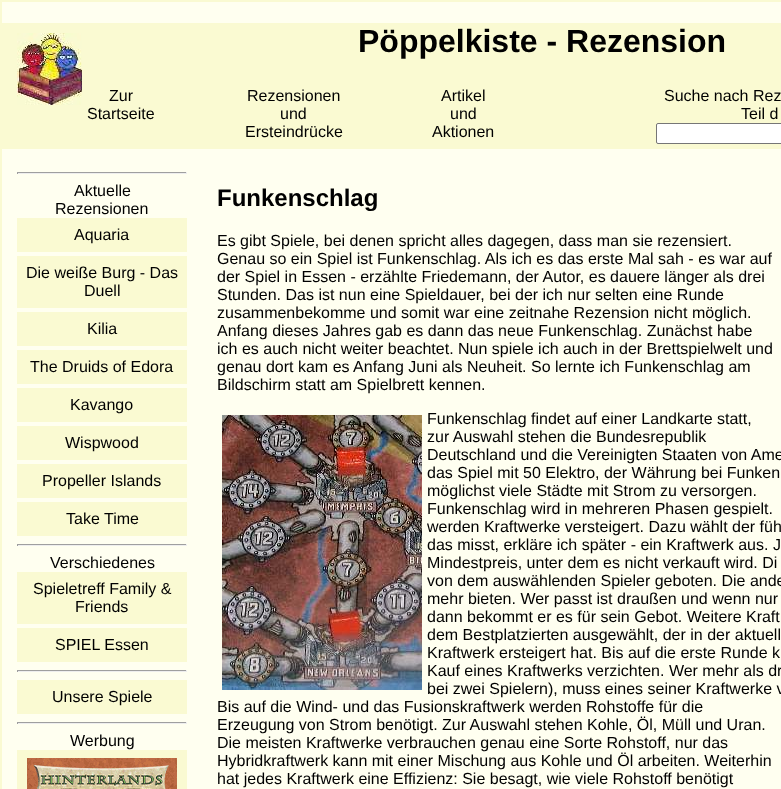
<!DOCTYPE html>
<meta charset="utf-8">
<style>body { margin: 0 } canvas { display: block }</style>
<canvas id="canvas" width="781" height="789"></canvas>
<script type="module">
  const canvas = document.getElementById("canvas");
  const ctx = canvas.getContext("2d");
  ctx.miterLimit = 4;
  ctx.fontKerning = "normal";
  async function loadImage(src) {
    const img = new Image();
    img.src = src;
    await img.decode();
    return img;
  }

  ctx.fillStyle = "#fffff0";
  ctx.fillRect(0, 0, 781, 789);
  ctx.strokeStyle = "#fafad2";
  ctx.lineWidth = 2;
  ctx.strokeRect(1, 1, 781, 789);
  ctx.fillStyle = "#fafad2";
  ctx.fillRect(2, 23, 779, 126);
  ctx.drawImage(await loadImage("img1.png"), 17, 33, 65, 72);
  ctx.font = "bold 32px Liberation Sans";
  ctx.fillStyle = "#000000";
  ctx.fillText("Pöppelkiste - Rezension", 358, 52);
  ctx.font = "16px Liberation Sans";
  ctx.fillText("Zur", 109, 101);
  ctx.fillText("Startseite", 87, 119);
  ctx.fillText("Rezensionen", 247, 101);
  ctx.fillText("und", 280, 119);
  ctx.fillText("Ersteindrücke", 245, 137);
  ctx.fillText("Artikel", 441, 101);
  ctx.fillText("und", 450, 119);
  ctx.fillText("Aktionen", 432, 137);
  ctx.fillText("Suche nach Rez", 664, 101);
  ctx.fillText("Teil d", 741, 119);
  ctx.fillStyle = "#ffffff";
  ctx.beginPath();
  ctx.roundRect(656.5, 123.5, 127, 20, 1.5);
  ctx.fill();
  ctx.strokeStyle = "#767676";
  ctx.lineWidth = 1;
  ctx.stroke();
  ctx.fillStyle = "#9f9f9f";
  ctx.fillRect(17, 172, 170, 1);
  ctx.fillStyle = "#eeeeee";
  ctx.fillRect(186, 172, 1, 2);
  ctx.fillRect(17, 173, 170, 1);
  ctx.fillStyle = "#9f9f9f";
  ctx.fillRect(17, 172, 1, 2);
  ctx.fillStyle = "#000000";
  ctx.fillText("Aktuelle", 74, 196);
  ctx.fillText("Rezensionen", 55, 214);
  ctx.fillStyle = "#fafad2";
  ctx.fillRect(17, 218, 170, 34);
  ctx.fillStyle = "#000000";
  ctx.fillText("Aquaria", 74, 240);
  ctx.fillStyle = "#fafad2";
  ctx.fillRect(17, 256, 170, 52);
  ctx.fillStyle = "#000000";
  ctx.fillText("Die weiße Burg - Das", 26, 278);
  ctx.fillText("Duell", 84, 296);
  ctx.fillStyle = "#fafad2";
  ctx.fillRect(17, 312, 170, 34);
  ctx.fillStyle = "#000000";
  ctx.fillText("Kilia", 87, 334);
  ctx.fillStyle = "#fafad2";
  ctx.fillRect(17, 350, 170, 34);
  ctx.fillStyle = "#000000";
  ctx.fillText("The Druids of Edora", 30, 372);
  ctx.fillStyle = "#fafad2";
  ctx.fillRect(17, 388, 170, 34);
  ctx.fillStyle = "#000000";
  ctx.fillText("Kavango", 70, 410);
  ctx.fillStyle = "#fafad2";
  ctx.fillRect(17, 426, 170, 34);
  ctx.fillStyle = "#000000";
  ctx.fillText("Wispwood", 65, 448);
  ctx.fillStyle = "#fafad2";
  ctx.fillRect(17, 464, 170, 34);
  ctx.fillStyle = "#000000";
  ctx.fillText("Propeller Islands", 42, 486);
  ctx.fillStyle = "#fafad2";
  ctx.fillRect(17, 502, 170, 34);
  ctx.fillStyle = "#000000";
  ctx.fillText("Take Time", 66, 524);
  ctx.fillStyle = "#9f9f9f";
  ctx.fillRect(17, 544, 170, 1);
  ctx.fillStyle = "#eeeeee";
  ctx.fillRect(186, 544, 1, 2);
  ctx.fillRect(17, 545, 170, 1);
  ctx.fillStyle = "#9f9f9f";
  ctx.fillRect(17, 544, 1, 2);
  ctx.fillStyle = "#000000";
  ctx.fillText("Verschiedenes", 50, 568);
  ctx.fillStyle = "#fafad2";
  ctx.fillRect(17, 572, 170, 52);
  ctx.fillStyle = "#000000";
  ctx.fillText("Spieletreff Family &", 33, 594);
  ctx.fillText("Friends", 75, 612);
  ctx.fillStyle = "#fafad2";
  ctx.fillRect(17, 628, 170, 34);
  ctx.fillStyle = "#000000";
  ctx.fillText("SPIEL Essen", 55, 650);
  ctx.fillStyle = "#9f9f9f";
  ctx.fillRect(17, 670, 170, 1);
  ctx.fillStyle = "#eeeeee";
  ctx.fillRect(186, 670, 1, 2);
  ctx.fillRect(17, 671, 170, 1);
  ctx.fillStyle = "#9f9f9f";
  ctx.fillRect(17, 670, 1, 2);
  ctx.fillStyle = "#fafad2";
  ctx.fillRect(17, 680, 170, 34);
  ctx.fillStyle = "#000000";
  ctx.fillText("Unsere Spiele", 52, 702);
  ctx.fillStyle = "#9f9f9f";
  ctx.fillRect(17, 722, 170, 1);
  ctx.fillStyle = "#eeeeee";
  ctx.fillRect(186, 722, 1, 2);
  ctx.fillRect(17, 723, 170, 1);
  ctx.fillStyle = "#9f9f9f";
  ctx.fillRect(17, 722, 1, 2);
  ctx.fillStyle = "#000000";
  ctx.fillText("Werbung", 70, 746);
  ctx.fillStyle = "#fafad2";
  ctx.fillRect(17, 750, 170, 39);
  ctx.drawImage(await loadImage("img2.png"), 27, 758, 150, 31);
  ctx.font = "bold 24px Liberation Sans";
  ctx.fillStyle = "#000000";
  ctx.fillText("Funkenschlag", 217, 206);
  ctx.font = "16px Liberation Sans";
  ctx.fillText("Es gibt Spiele, bei denen spricht alles dagegen, dass man sie rezensiert.", 217, 246);
  ctx.fillText("Genau so ein Spiel ist Funkenschlag. Als ich es das erste Mal sah - es war auf", 217, 264);
  ctx.fillText("der Spiel in Essen - erzählte Friedemann, der Autor, es dauere länger als drei", 217, 282);
  ctx.fillText("Stunden. Das ist nun eine Spieldauer, bei der ich nur selten eine Runde", 217, 300);
  ctx.fillText("zusammenbekomme und somit war eine zeitnahe Rezension nicht möglich.", 217, 318);
  ctx.fillText("Anfang dieses Jahres gab es dann das neue Funkenschlag. Zunächst habe", 217, 336);
  ctx.fillText("ich es auch nicht weiter beachtet. Nun spiele ich auch in der Brettspielwelt und", 217, 354);
  ctx.fillText("genau dort kam es Anfang Juni als Neuheit. So lernte ich Funkenschlag am", 217, 372);
  ctx.fillText("Bildschirm statt am Spielbrett kennen.", 217, 390);
  ctx.drawImage(await loadImage("img3.png"), 222, 415, 200, 275);
  ctx.fillText("Funkenschlag findet auf einer Landkarte statt,", 427, 424);
  ctx.fillText("zur Auswahl stehen die Bundesrepublik", 427, 442);
  ctx.fillText("Deutschland und die Vereinigten Staaten von Ame", 427, 460);
  ctx.fillText("das Spiel mit 50 Elektro, der Währung bei Funken", 427, 478);
  ctx.fillText("möglichst viele Städte mit Strom zu versorgen.", 427, 496);
  ctx.fillText("Funkenschlag wird in mehreren Phasen gespielt.", 427, 514);
  ctx.fillText("werden Kraftwerke versteigert. Dazu wählt der füh", 427, 532);
  ctx.fillText("das misst, erkläre ich später - ein Kraftwerk aus. J", 427, 550);
  ctx.fillText("Mindestpreis, unter dem es nicht verkauft wird. Di", 427, 568);
  ctx.fillText("von dem auswählenden Spieler geboten. Die ande", 427, 586);
  ctx.fillText("mehr bieten. Wer passt ist draußen und wenn nur", 427, 604);
  ctx.fillText("dann bekommt er es für sein Gebot. Weitere Kraft", 427, 622);
  ctx.fillText("dem Bestplatzierten ausgewählt, der in der aktuell", 427, 640);
  ctx.fillText("Kraftwerk ersteigert hat. Bis auf die erste Runde k", 427, 658);
  ctx.fillText("Kauf eines Kraftwerks verzichten. Wer mehr als dr", 427, 676);
  ctx.fillText("bei zwei Spielern), muss eines seiner Kraftwerke v", 427, 694);
  ctx.fillText("Bis auf die Wind- und das Fusionskraftwerk werden Rohstoffe für die", 217, 712);
  ctx.fillText("Erzeugung von Strom benötigt. Zur Auswahl stehen Kohle, Öl, Müll und Uran.", 217, 730);
  ctx.fillText("Die meisten Kraftwerke verbrauchen genau eine Sorte Rohstoff, nur das", 217, 748);
  ctx.fillText("Hybridkraftwerk kann mit einer Mischung aus Kohle und Öl arbeiten. Weiterhin", 217, 766);
  ctx.fillText("hat jedes Kraftwerk eine Effizienz: Sie besagt, wie viele Rohstoff benötigt", 217, 784);
</script>
